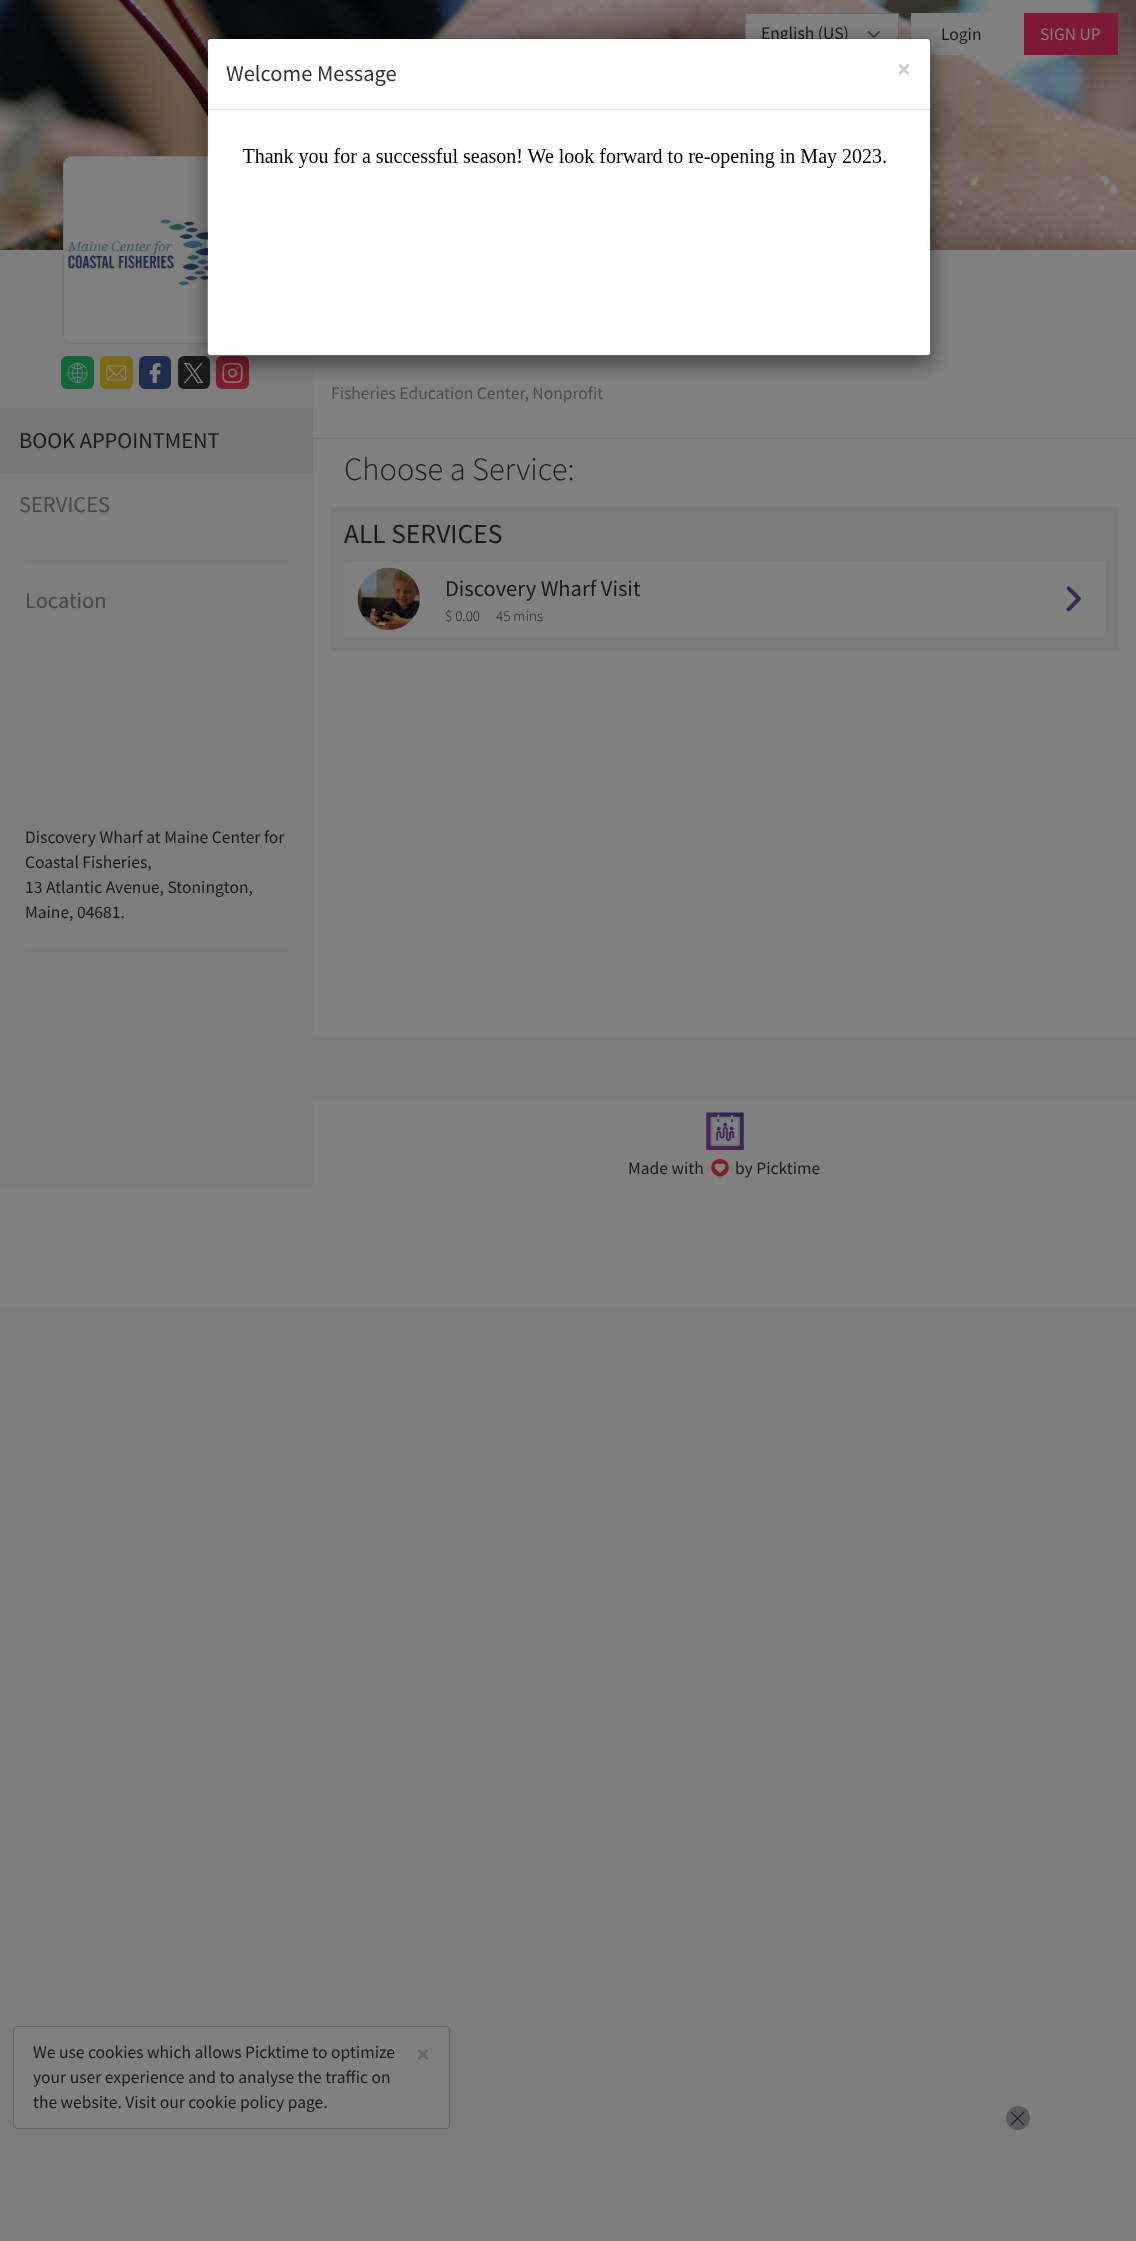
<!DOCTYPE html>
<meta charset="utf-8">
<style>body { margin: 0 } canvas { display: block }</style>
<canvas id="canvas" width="1136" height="2241"></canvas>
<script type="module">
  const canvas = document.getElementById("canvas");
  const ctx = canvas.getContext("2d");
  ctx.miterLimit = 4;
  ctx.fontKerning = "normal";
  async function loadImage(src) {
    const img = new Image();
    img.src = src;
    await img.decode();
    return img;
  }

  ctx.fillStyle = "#7d7d7d";
  ctx.fillRect(0, 0, 1136, 2241);
  ctx.drawImage(await loadImage("img1.png"), 0, 0, 1136, 250);
  ctx.fillStyle = "#808080";
  ctx.beginPath();
  ctx.roundRect(745, 13, 154, 40, 4);
  ctx.fill();
  ctx.strokeStyle = "#666666";
  ctx.strokeRect(745.5, 13.5, 153, 39);
  ctx.font = "17.5px Source Sans Pro";
  ctx.fillStyle = "#1a1a1a";
  ctx.fillText("English (US)", 761, 39);
  ctx.drawImage(await loadImage("img2.png"), 867, 30, 13, 8);
  ctx.fillStyle = "#808080";
  ctx.fillRect(911, 13, 74, 42);
  ctx.fillStyle = "#1a1a1a";
  ctx.fillText("Login", 941, 40);
  ctx.fillStyle = "#7d1836";
  ctx.fillRect(1024, 13, 94, 42);
  ctx.fillStyle = "#808080";
  ctx.fillText("SIGN UP", 1040, 40);
  ctx.beginPath();
  ctx.roundRect(63.5, 156.5, 186, 187, 8.5);
  ctx.fill();
  ctx.strokeStyle = "#777777";
  ctx.stroke();
  ctx.drawImage(await loadImage("img3.png"), 64, 160, 144, 180);
  ctx.fillStyle = "#1a1a1a";
  ctx.beginPath();
  ctx.roundRect(178, 356, 32, 33, 6);
  ctx.fill();
  ctx.drawImage(await loadImage("img8.png"), 183, 363, 21, 20);
  ctx.fillStyle = "#7e1d2c";
  ctx.beginPath();
  ctx.roundRect(216, 356, 33, 33, 6);
  ctx.fill();
  ctx.drawImage(await loadImage("img9.png"), 222, 363, 21, 20);
  ctx.fillStyle = "#808080";
  ctx.fillRect(313, 250, 823, 788);
  ctx.save();
  ctx.beginPath();
  ctx.moveTo(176, 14);
  ctx.lineTo(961, 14);
  ctx.lineTo(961, 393);
  ctx.lineTo(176, 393);
  ctx.closePath();
  ctx.moveTo(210, 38);
  ctx.lineTo(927, 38);
  ctx.bezierCurveTo(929, 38, 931, 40, 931, 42);
  ctx.lineTo(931, 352);
  ctx.bezierCurveTo(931, 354, 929, 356, 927, 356);
  ctx.lineTo(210, 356);
  ctx.bezierCurveTo(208, 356, 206, 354, 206, 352);
  ctx.lineTo(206, 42);
  ctx.bezierCurveTo(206, 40, 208, 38, 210, 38);
  ctx.closePath();
  ctx.clip("evenodd");
  ctx.fillStyle = "rgba(0, 0, 0, 0.5)";
  ctx.filter = "blur(9.5px)";
  ctx.beginPath();
  ctx.roundRect(206, 44, 725, 319, 4);
  ctx.fill();
  ctx.filter = "none";
  ctx.restore();
  ctx.fillStyle = "#ffffff";
  ctx.beginPath();
  ctx.roundRect(208, 39, 722, 316, 2.5);
  ctx.fill();
  ctx.beginPath();
  ctx.roundRect(206.5, 38.5, 724, 317, 3.5);
  ctx.strokeStyle = "rgba(0, 0, 0, 0.2)";
  ctx.stroke();
  ctx.fillStyle = "#e5e5e5";
  ctx.fillRect(208, 109, 722, 1);
  ctx.font = "22.5px Source Sans Pro";
  ctx.fillStyle = "#333333";
  ctx.fillText("Welcome Message", 226, 81);
  ctx.font = "bold 26px Source Sans Pro";
  ctx.fillStyle = "#cccccc";
  ctx.fillText("×", 897, 78);
  ctx.drawImage(await loadImage("img4.png"), 242, 148, 644, 20);
  ctx.fillStyle = "#808080";
  ctx.fillRect(0, 1100, 1136, 206);
  ctx.fillStyle = "#7d7d7d";
  ctx.fillRect(0, 1100, 313, 88);
  ctx.fillStyle = "#176639";
  ctx.beginPath();
  ctx.roundRect(61, 356, 33, 33, 6);
  ctx.fill();
  ctx.drawImage(await loadImage("img5.png"), 67, 363, 21, 20);
  ctx.fillStyle = "#7c6618";
  ctx.beginPath();
  ctx.roundRect(100, 356, 33, 33, 6);
  ctx.fill();
  ctx.drawImage(await loadImage("img6.png"), 106, 365, 21, 16);
  ctx.fillStyle = "#1e2d4c";
  ctx.beginPath();
  ctx.roundRect(139, 356, 32, 33, 6);
  ctx.fill();
  ctx.drawImage(await loadImage("img7.png"), 149, 363, 12, 20);
  ctx.fillStyle = "#787777";
  ctx.fillRect(0, 408, 313, 65);
  ctx.font = "22.5px Source Sans Pro";
  ctx.fillStyle = "#1a1a1a";
  ctx.fillText("BOOK APPOINTMENT", 19, 448);
  ctx.fillStyle = "#474748";
  ctx.fillText("SERVICES", 19, 512);
  ctx.fillStyle = "#777777";
  ctx.fillRect(25, 561, 263, 1);
  ctx.fillRect(25, 950, 263, 1);
  ctx.fillStyle = "#474748";
  ctx.fillText("Location", 25, 608);
  ctx.font = "17.5px Source Sans Pro";
  ctx.fillStyle = "#1a1a1a";
  ctx.fillText("Discovery Wharf at Maine Center for", 25, 843);
  ctx.fillText("Coastal Fisheries,", 25, 868);
  ctx.fillText("13 Atlantic Avenue, Stonington,", 25, 893);
  ctx.fillText("Maine, 04681.", 25, 918);
  ctx.fillStyle = "#777777";
  ctx.fillRect(313, 438, 823, 1);
  ctx.fillStyle = "#4d4d4d";
  ctx.fillText("Fisheries Education Center, Nonprofit", 331, 399);
  ctx.font = "300 32.5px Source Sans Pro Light";
  ctx.fillStyle = "#1a1a1a";
  ctx.fillText("Choose a Service:", 344, 480);
  ctx.fillStyle = "#7b7b7b";
  ctx.fillRect(331, 506, 787, 144);
  ctx.font = "27.5px Source Sans Pro";
  ctx.fillStyle = "#1a1a1a";
  ctx.fillText("ALL SERVICES", 344, 543);
  ctx.fillStyle = "#808080";
  ctx.beginPath();
  ctx.roundRect(344, 561, 761, 77, 4);
  ctx.fill();
  ctx.drawImage(await loadImage("img10.png"), 357, 567, 63, 63);
  ctx.font = "22.5px Source Sans Pro";
  ctx.fillStyle = "#1a1a1a";
  ctx.fillText("Discovery Wharf Visit", 445, 596);
  ctx.font = "300 15px Source Sans Pro Light";
  ctx.fillText("$ 0.00", 445, 621);
  ctx.fillText("45 mins", 496, 621);
  ctx.drawImage(await loadImage("img11.png"), 1066, 586, 15, 26);
  ctx.drawImage(await loadImage("img12.png"), 706, 1112, 38, 38);
  ctx.font = "17.5px Source Sans Pro";
  ctx.fillText("Made with", 628, 1174);
  ctx.drawImage(await loadImage("img13.png"), 711, 1158, 18, 19);
  ctx.fillText("by Picktime", 735, 1174);
  ctx.fillStyle = "#808080";
  ctx.beginPath();
  ctx.roundRect(13.5, 2026.5, 436, 102, 3.5);
  ctx.fill();
  ctx.strokeStyle = "#666666";
  ctx.stroke();
  ctx.fillStyle = "#1a1a1a";
  ctx.fillText("We use cookies which allows Picktime to optimize", 33, 2058);
  ctx.font = "bold 26px Source Sans Pro";
  ctx.fillStyle = "#666666";
  ctx.fillText("×", 416, 2063);
  ctx.font = "17.5px Source Sans Pro";
  ctx.fillStyle = "#1a1a1a";
  ctx.fillText("your user experience and to analyse the traffic on", 33, 2083);
  ctx.fillText("the website. Visit our cookie policy page.", 33, 2108);
  ctx.fillStyle = "#585a5c";
  ctx.beginPath();
  ctx.arc(1018, 2118, 12, 0, Math.PI * 2);
  ctx.fill();
  ctx.drawImage(await loadImage("img14.png"), 1010, 2111, 15, 15);
</script>
